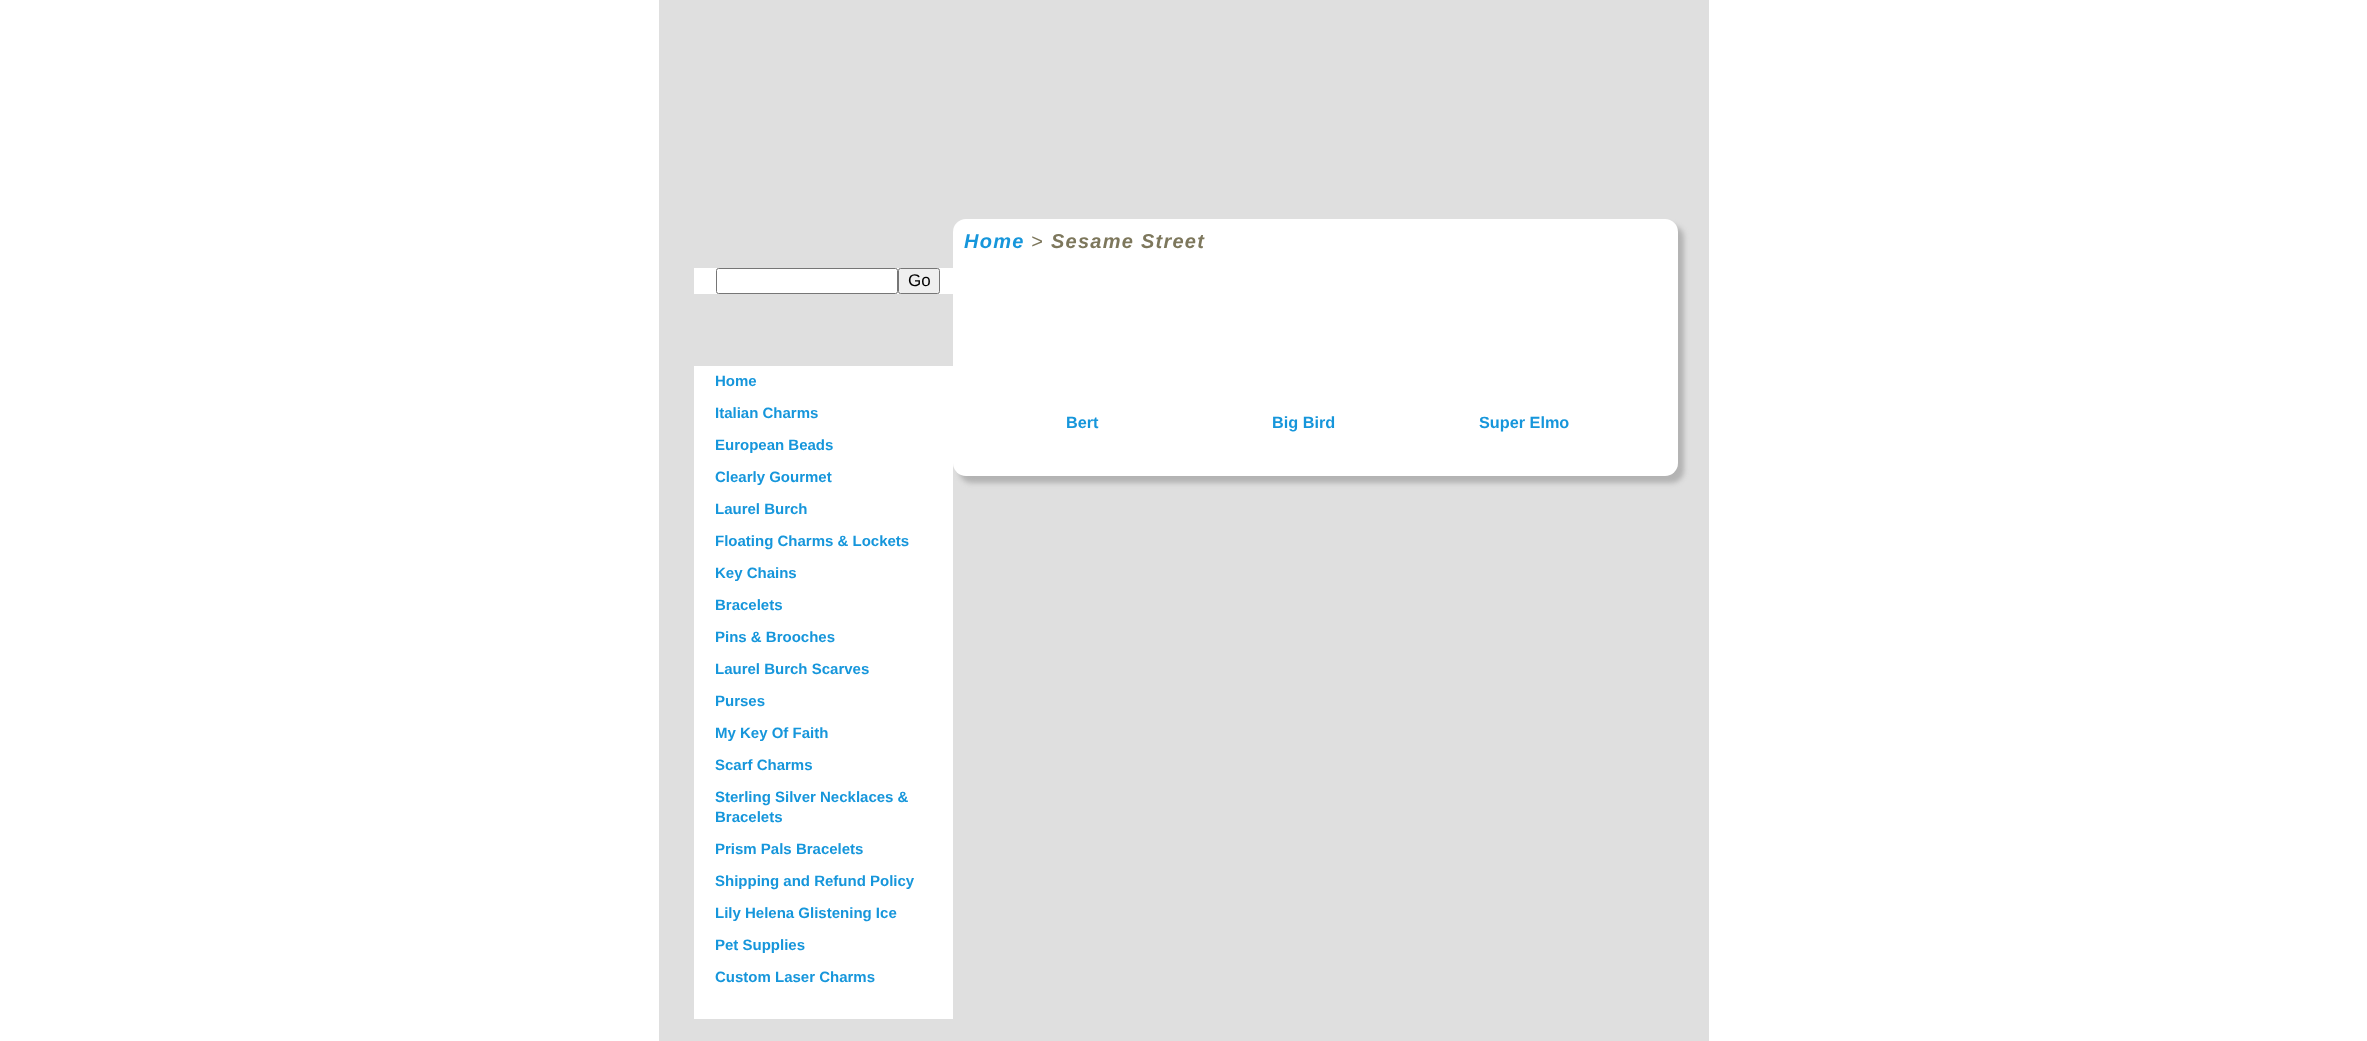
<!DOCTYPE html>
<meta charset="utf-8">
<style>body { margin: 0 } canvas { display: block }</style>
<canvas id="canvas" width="2367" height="1041"></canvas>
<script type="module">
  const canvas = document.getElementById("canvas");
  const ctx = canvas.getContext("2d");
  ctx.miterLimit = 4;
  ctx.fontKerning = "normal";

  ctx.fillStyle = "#ffffff";
  ctx.fillRect(0, 0, 2367, 1041);
  ctx.fillStyle = "#dfdfdf";
  ctx.fillRect(659, 0, 1050, 1041);
  ctx.fillStyle = "#b3b3b3";
  ctx.filter = "blur(2.5px)";
  ctx.beginPath();
  ctx.roundRect(959, 225, 725, 258, 13);
  ctx.fill();
  ctx.filter = "none";
  ctx.fillStyle = "#ffffff";
  ctx.fillRect(694, 268, 259, 26);
  ctx.beginPath();
  ctx.roundRect(716.5, 268.5, 181, 25, 2);
  ctx.strokeStyle = "#767676";
  ctx.stroke();
  ctx.fillStyle = "#efefef";
  ctx.beginPath();
  ctx.roundRect(898.5, 268.5, 41, 25, 2);
  ctx.fill();
  ctx.stroke();
  ctx.font = "17px Liberation Sans";
  ctx.fillStyle = "#000000";
  ctx.fillText("Go", 908, 286);
  ctx.fillStyle = "#ffffff";
  ctx.fillRect(694, 366, 259, 653);
  ctx.font = "bold 15px Liberation Sans";
  ctx.fillStyle = "#1696db";
  ctx.fillText("Home", 715, 386);
  ctx.fillText("Italian Charms", 715, 418);
  ctx.fillText("European Beads", 715, 450);
  ctx.fillText("Clearly Gourmet", 715, 482);
  ctx.fillText("Laurel Burch", 715, 514);
  ctx.fillText("Floating Charms & Lockets", 715, 546);
  ctx.fillText("Key Chains", 715, 578);
  ctx.fillText("Bracelets", 715, 610);
  ctx.fillText("Pins & Brooches", 715, 642);
  ctx.fillText("Laurel Burch Scarves", 715, 674);
  ctx.fillText("Purses", 715, 706);
  ctx.fillText("My Key Of Faith", 715, 738);
  ctx.fillText("Scarf Charms", 715, 770);
  ctx.fillText("Sterling Silver Necklaces &", 715, 802);
  ctx.fillText("Bracelets", 715, 822);
  ctx.fillText("Prism Pals Bracelets", 715, 854);
  ctx.fillText("Shipping and Refund Policy", 715, 886);
  ctx.fillText("Lily Helena Glistening Ice", 715, 918);
  ctx.fillText("Pet Supplies", 715, 950);
  ctx.fillText("Custom Laser Charms", 715, 982);
  ctx.fillStyle = "#ffffff";
  ctx.beginPath();
  ctx.roundRect(953, 219, 725, 257, 13);
  ctx.fill();
  ctx.letterSpacing = "1.25px";
  ctx.font = "italic bold 20px Liberation Sans";
  ctx.fillStyle = "#1696db";
  ctx.fillText("Home", 964, 248);
  ctx.font = "italic 20px Liberation Sans";
  ctx.fillStyle = "#7d775c";
  ctx.fillText(">", 1031, 248);
  ctx.font = "italic bold 20px Liberation Sans";
  ctx.fillText("Sesame Street", 1051, 248);
  ctx.letterSpacing = "0px";
  ctx.font = "bold 16.25px Liberation Sans";
  ctx.fillStyle = "#1696db";
  ctx.fillText("Bert", 1066, 428);
  ctx.fillText("Big Bird", 1272, 428);
  ctx.fillText("Super Elmo", 1479, 428);
</script>
